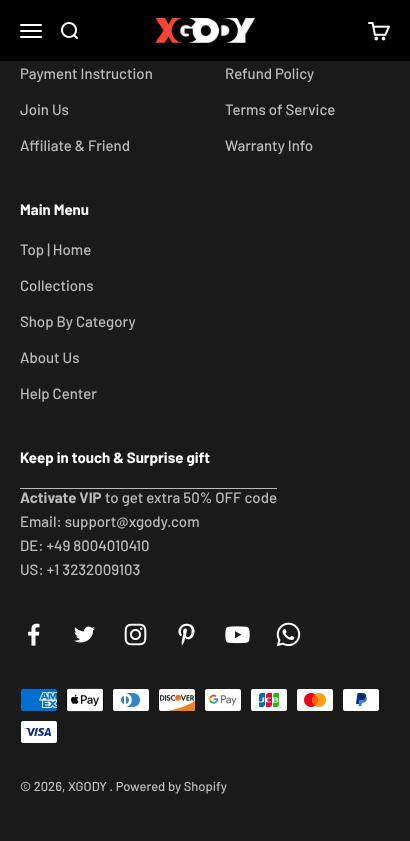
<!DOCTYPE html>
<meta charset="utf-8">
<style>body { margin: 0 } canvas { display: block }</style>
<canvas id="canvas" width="410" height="841"></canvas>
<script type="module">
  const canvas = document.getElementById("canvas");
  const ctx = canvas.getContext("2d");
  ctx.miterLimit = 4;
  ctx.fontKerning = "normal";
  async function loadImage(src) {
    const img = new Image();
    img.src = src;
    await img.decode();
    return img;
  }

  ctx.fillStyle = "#1a1a1a";
  ctx.fillRect(0, 0, 410, 841);
  ctx.fillStyle = "#000000";
  ctx.fillRect(0, 0, 410, 61);
  ctx.drawImage(await loadImage("img1.png"), 20, 24, 22, 14);
  ctx.drawImage(await loadImage("img2.png"), 61, 22, 17, 17);
  ctx.drawImage(await loadImage("img3.png"), 155, 18, 100, 25);
  ctx.drawImage(await loadImage("img4.png"), 368, 22, 22, 19);
  ctx.font = "500 15px Barlow";
  ctx.fillStyle = "#bababa";
  ctx.fillText("Payment Instruction", 20, 79);
  ctx.fillText("Join Us", 20, 115);
  ctx.fillText("Affiliate & Friend", 20, 151);
  ctx.fillText("Refund Policy", 225, 79);
  ctx.fillText("Terms of Service", 225, 115);
  ctx.fillText("Warranty Info", 225, 151);
  ctx.font = "bold 15px Barlow";
  ctx.fillStyle = "#ffffff";
  ctx.fillText("Main Menu", 20, 215);
  ctx.font = "500 15px Barlow";
  ctx.fillStyle = "#bababa";
  ctx.fillText("Top | Home", 20, 255);
  ctx.fillText("Collections", 20, 291);
  ctx.fillText("Shop By Category", 20, 327);
  ctx.fillText("About Us", 20, 363);
  ctx.fillText("Help Center", 20, 399);
  ctx.font = "bold 15px Barlow";
  ctx.fillStyle = "#ffffff";
  ctx.fillText("Keep in touch & Surprise gift", 20, 463);
  ctx.fillStyle = "#bababa";
  ctx.fillText("Activate VIP", 20, 503);
  ctx.fillRect(20, 488, 257, 1);
  ctx.font = "500 15px Barlow";
  ctx.fillText("to get extra 50% OFF code", 105, 503);
  ctx.fillText("Email: support@xgody.com", 20, 527);
  ctx.fillText("DE: +49 8004010410", 20, 551);
  ctx.fillText("US: +1 3232009103", 20, 575);
  ctx.drawImage(await loadImage("img5.png"), 28, 623, 12, 23);
  ctx.drawImage(await loadImage("img6.png"), 74, 626, 21, 17);
  ctx.drawImage(await loadImage("img7.png"), 124, 623, 23, 23);
  ctx.drawImage(await loadImage("img8.png"), 178, 623, 17, 23);
  ctx.drawImage(await loadImage("img9.png"), 225, 626, 25, 18);
  ctx.drawImage(await loadImage("img10.png"), 276, 622, 25, 25);
  ctx.drawImage(await loadImage("img11.png"), 21, 689, 36, 22);
  ctx.drawImage(await loadImage("img12.png"), 66, 688, 38, 24);
  ctx.drawImage(await loadImage("img13.png"), 113, 689, 36, 22);
  ctx.drawImage(await loadImage("img14.png"), 159, 689, 36, 22);
  ctx.drawImage(await loadImage("img15.png"), 205, 689, 36, 22);
  ctx.drawImage(await loadImage("img16.png"), 251, 689, 36, 22);
  ctx.drawImage(await loadImage("img17.png"), 297, 689, 36, 22);
  ctx.drawImage(await loadImage("img18.png"), 343, 689, 36, 22);
  ctx.drawImage(await loadImage("img19.png"), 21, 721, 36, 22);
  ctx.font = "500 13px Barlow";
  ctx.fillText("© 2026, XGODY . Powered by Shopify", 20, 791);
</script>
